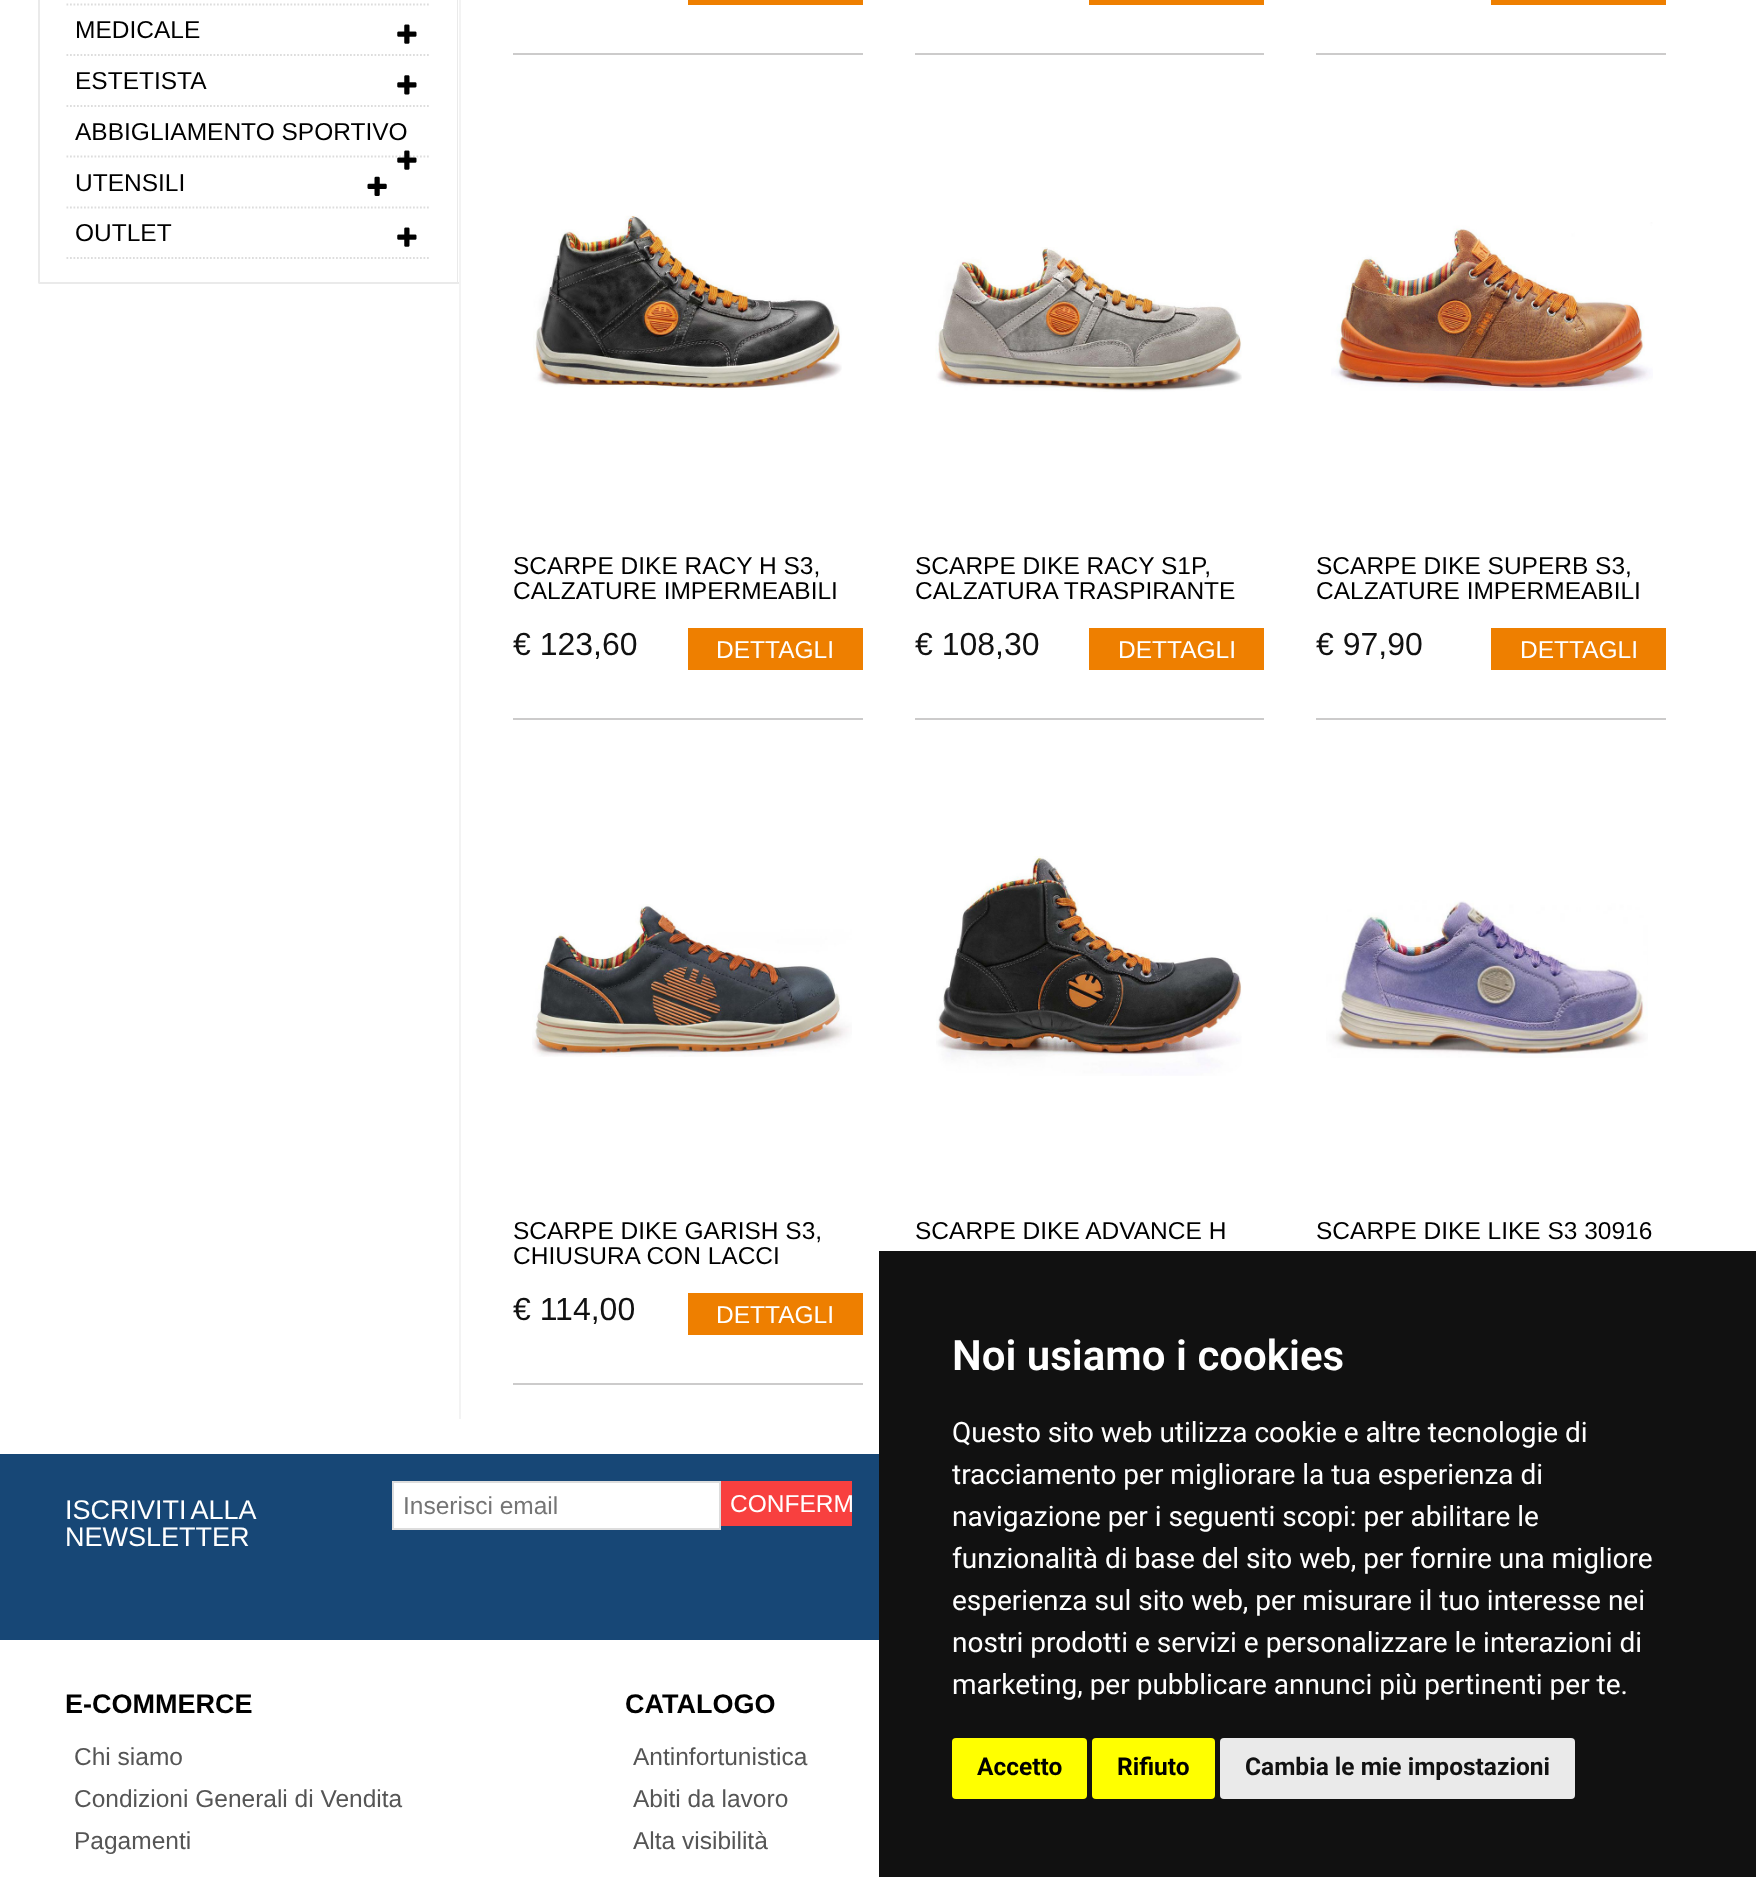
<!DOCTYPE html>
<meta charset="utf-8">
<style>body { margin: 0 } canvas { display: block }</style>
<canvas id="canvas" width="1756" height="1877"></canvas>
<script type="module">
  const canvas = document.getElementById("canvas");
  const ctx = canvas.getContext("2d");
  ctx.miterLimit = 4;
  ctx.fontKerning = "normal";
  async function loadImage(src) {
    const img = new Image();
    img.src = src;
    await img.decode();
    return img;
  }

  ctx.fillStyle = "#ffffff";
  ctx.fillRect(0, 0, 1756, 1877);
  ctx.fillStyle = "#eaeaea";
  ctx.beginPath();
  ctx.moveTo(458, -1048);
  ctx.lineTo(458, 284);
  ctx.lineTo(457, 282);
  ctx.lineTo(457, -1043);
  ctx.closePath();
  ctx.fill();
  ctx.fillRect(39, 282, 420, 2);
  ctx.beginPath();
  ctx.moveTo(38, 284);
  ctx.lineTo(38, -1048);
  ctx.lineTo(40, -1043);
  ctx.lineTo(40, 282);
  ctx.closePath();
  ctx.fill();
  ctx.beginPath();
  ctx.moveTo(66.5, 4.5);
  ctx.lineTo(430.5, 4.5);
  ctx.strokeStyle = "#dddddd";
  ctx.lineWidth = 1.8;
  ctx.setLineDash([1.75, 1.75]);
  ctx.stroke();
  ctx.beginPath();
  ctx.moveTo(66.5, 55);
  ctx.lineTo(430.5, 55);
  ctx.stroke();
  ctx.font = "24.5px Liberation Sans";
  ctx.fillStyle = "#000000";
  ctx.fillText("MEDICALE", 75, 38);
  ctx.drawImage(await loadImage("img1.png"), 397, 24, 20, 20);
  ctx.beginPath();
  ctx.moveTo(66.5, 106);
  ctx.lineTo(430.5, 106);
  ctx.stroke();
  ctx.fillText("ESTETISTA", 75, 89);
  ctx.drawImage(await loadImage("img2.png"), 397, 75, 20, 20);
  ctx.beginPath();
  ctx.moveTo(66.5, 156.5);
  ctx.lineTo(430.5, 156.5);
  ctx.stroke();
  ctx.fillText("ABBIGLIAMENTO SPORTIVO", 75, 140);
  ctx.drawImage(await loadImage("img3.png"), 397, 150, 20, 20);
  ctx.beginPath();
  ctx.moveTo(66.5, 207.5);
  ctx.lineTo(430.5, 207.5);
  ctx.stroke();
  ctx.fillText("UTENSILI", 75, 191);
  ctx.drawImage(await loadImage("img4.png"), 367, 176, 20, 20);
  ctx.beginPath();
  ctx.moveTo(66.5, 258);
  ctx.lineTo(430.5, 258);
  ctx.stroke();
  ctx.fillText("OUTLET", 75, 241);
  ctx.drawImage(await loadImage("img1.png"), 397, 227, 20, 20);
  ctx.fillStyle = "#f3f3f3";
  ctx.fillRect(459, 0, 2, 1419);
  ctx.fillStyle = "#cccbcb";
  ctx.fillRect(513, 53, 350, 2);
  ctx.fillStyle = "#ee7f00";
  ctx.fillRect(688, 0, 175, 5);
  ctx.fillStyle = "#cccbcb";
  ctx.fillRect(915, 53, 349, 2);
  ctx.fillStyle = "#ee7f00";
  ctx.fillRect(1089, 0, 175, 5);
  ctx.fillStyle = "#cccbcb";
  ctx.fillRect(1316, 53, 350, 2);
  ctx.fillStyle = "#ee7f00";
  ctx.fillRect(1491, 0, 175, 5);
  ctx.fillStyle = "#cccbcb";
  ctx.fillRect(513, 718, 350, 2);
  ctx.drawImage(await loadImage("img5.png"), 533, 215, 309, 175);
  ctx.fillStyle = "#000000";
  ctx.fillText("SCARPE DIKE RACY H S3,", 513, 574);
  ctx.fillText("CALZATURE IMPERMEABILI", 513, 599);
  ctx.font = "32px Liberation Sans";
  ctx.fillStyle = "#111111";
  ctx.fillText("€ 123,60", 513, 655);
  ctx.fillStyle = "#ee7f00";
  ctx.fillRect(688, 628, 175, 42);
  ctx.font = "24.5px Liberation Sans";
  ctx.fillStyle = "#ffffff";
  ctx.fillText("DETTAGLI", 716, 658);
  ctx.fillStyle = "#cccbcb";
  ctx.fillRect(915, 718, 349, 2);
  ctx.drawImage(await loadImage("img6.png"), 935, 247, 307, 145);
  ctx.fillStyle = "#000000";
  ctx.fillText("SCARPE DIKE RACY S1P,", 915, 574);
  ctx.fillText("CALZATURA TRASPIRANTE", 915, 599);
  ctx.font = "32px Liberation Sans";
  ctx.fillStyle = "#111111";
  ctx.fillText("€ 108,30", 915, 655);
  ctx.fillStyle = "#ee7f00";
  ctx.fillRect(1089, 628, 175, 42);
  ctx.font = "24.5px Liberation Sans";
  ctx.fillStyle = "#ffffff";
  ctx.fillText("DETTAGLI", 1118, 658);
  ctx.fillStyle = "#cccbcb";
  ctx.fillRect(1316, 718, 350, 2);
  ctx.drawImage(await loadImage("img7.png"), 1331, 222, 322, 169);
  ctx.fillStyle = "#000000";
  ctx.fillText("SCARPE DIKE SUPERB S3,", 1316, 574);
  ctx.fillText("CALZATURE IMPERMEABILI", 1316, 599);
  ctx.font = "32px Liberation Sans";
  ctx.fillStyle = "#111111";
  ctx.fillText("€ 97,90", 1316, 655);
  ctx.fillStyle = "#ee7f00";
  ctx.fillRect(1491, 628, 175, 42);
  ctx.font = "24.5px Liberation Sans";
  ctx.fillStyle = "#ffffff";
  ctx.fillText("DETTAGLI", 1520, 658);
  ctx.fillStyle = "#cccbcb";
  ctx.fillRect(513, 1383, 350, 2);
  ctx.drawImage(await loadImage("img8.png"), 532, 904, 320, 153);
  ctx.fillStyle = "#000000";
  ctx.fillText("SCARPE DIKE GARISH S3,", 513, 1239);
  ctx.fillText("CHIUSURA CON LACCI", 513, 1264);
  ctx.font = "32px Liberation Sans";
  ctx.fillStyle = "#111111";
  ctx.fillText("€ 114,00", 513, 1320);
  ctx.fillStyle = "#ee7f00";
  ctx.fillRect(688, 1293, 175, 42);
  ctx.font = "24.5px Liberation Sans";
  ctx.fillStyle = "#ffffff";
  ctx.fillText("DETTAGLI", 716, 1323);
  ctx.drawImage(await loadImage("img9.png"), 936, 856, 306, 220);
  ctx.fillStyle = "#000000";
  ctx.fillText("SCARPE DIKE ADVANCE H", 915, 1239);
  ctx.drawImage(await loadImage("img10.png"), 1326, 900, 322, 158);
  ctx.fillText("SCARPE DIKE LIKE S3 30916", 1316, 1239);
  ctx.fillStyle = "#174776";
  ctx.fillRect(0, 1454, 879, 186);
  ctx.wordSpacing = "-2px";
  ctx.font = "27px Liberation Sans";
  ctx.fillStyle = "#ffffff";
  ctx.fillText("ISCRIVITI ALLA", 65, 1519);
  ctx.wordSpacing = "0px";
  ctx.fillText("NEWSLETTER", 65, 1546);
  ctx.beginPath();
  ctx.rect(393, 1482, 327, 47);
  ctx.fill();
  ctx.lineWidth = 2;
  ctx.setLineDash([]);
  ctx.stroke();
  ctx.font = "24.5px Liberation Sans";
  ctx.fillStyle = "#757575";
  ctx.fillText("Inserisci email", 403, 1514);
  ctx.fillStyle = "#f8403f";
  ctx.fillRect(721, 1481, 131, 45);
  ctx.fillStyle = "#ffffff";
  ctx.fillText("CONFERM", 730, 1512);
  ctx.font = "bold 27px Liberation Sans";
  ctx.fillStyle = "#000000";
  ctx.fillText("E-COMMERCE", 65, 1713);
  ctx.font = "24.5px Liberation Sans";
  ctx.fillStyle = "#555555";
  ctx.fillText("Chi siamo", 74, 1765);
  ctx.fillText("Condizioni Generali di Vendita", 74, 1807);
  ctx.fillText("Pagamenti", 74, 1849);
  ctx.font = "bold 27px Liberation Sans";
  ctx.fillStyle = "#000000";
  ctx.fillText("CATALOGO", 625, 1713);
  ctx.font = "24.5px Liberation Sans";
  ctx.fillStyle = "#555555";
  ctx.fillText("Antinfortunistica", 633, 1765);
  ctx.fillText("Abiti da lavoro", 633, 1807);
  ctx.fillText("Alta visibilità", 633, 1849);
  ctx.fillStyle = "#111111";
  ctx.fillRect(879, 1251, 877, 626);
  ctx.font = "600 42px Roboto";
  ctx.fillStyle = "#ffffff";
  ctx.fillText("Noi usiamo i cookies", 952, 1370);
  ctx.font = "28px Roboto";
  ctx.fillText("Questo sito web utilizza cookie e altre tecnologie di", 952, 1442);
  ctx.fillText("tracciamento per migliorare la tua esperienza di", 952, 1484);
  ctx.fillText("navigazione per i seguenti scopi: per abilitare le", 952, 1526);
  ctx.fillText("funzionalità di base del sito web, per fornire una migliore", 952, 1568);
  ctx.fillText("esperienza sul sito web, per misurare il tuo interesse nei", 952, 1610);
  ctx.fillText("nostri prodotti e servizi e personalizzare le interazioni di", 952, 1652);
  ctx.fillText("marketing, per pubblicare annunci più pertinenti per te.", 952, 1694);
  ctx.fillStyle = "#ffff00";
  ctx.beginPath();
  ctx.roundRect(952, 1738, 135, 61, 4);
  ctx.fill();
  ctx.font = "bold 24.5px Roboto";
  ctx.fillStyle = "#000000";
  ctx.fillText("Accetto", 977, 1775);
  ctx.fillStyle = "#ffff00";
  ctx.beginPath();
  ctx.roundRect(1092, 1738, 123, 61, 4);
  ctx.fill();
  ctx.fillStyle = "#000000";
  ctx.fillText("Rifiuto", 1117, 1775);
  ctx.fillStyle = "#eaeaea";
  ctx.beginPath();
  ctx.roundRect(1220, 1738, 355, 61, 4);
  ctx.fill();
  ctx.fillStyle = "#111111";
  ctx.fillText("Cambia le mie impostazioni", 1245, 1775);
</script>
